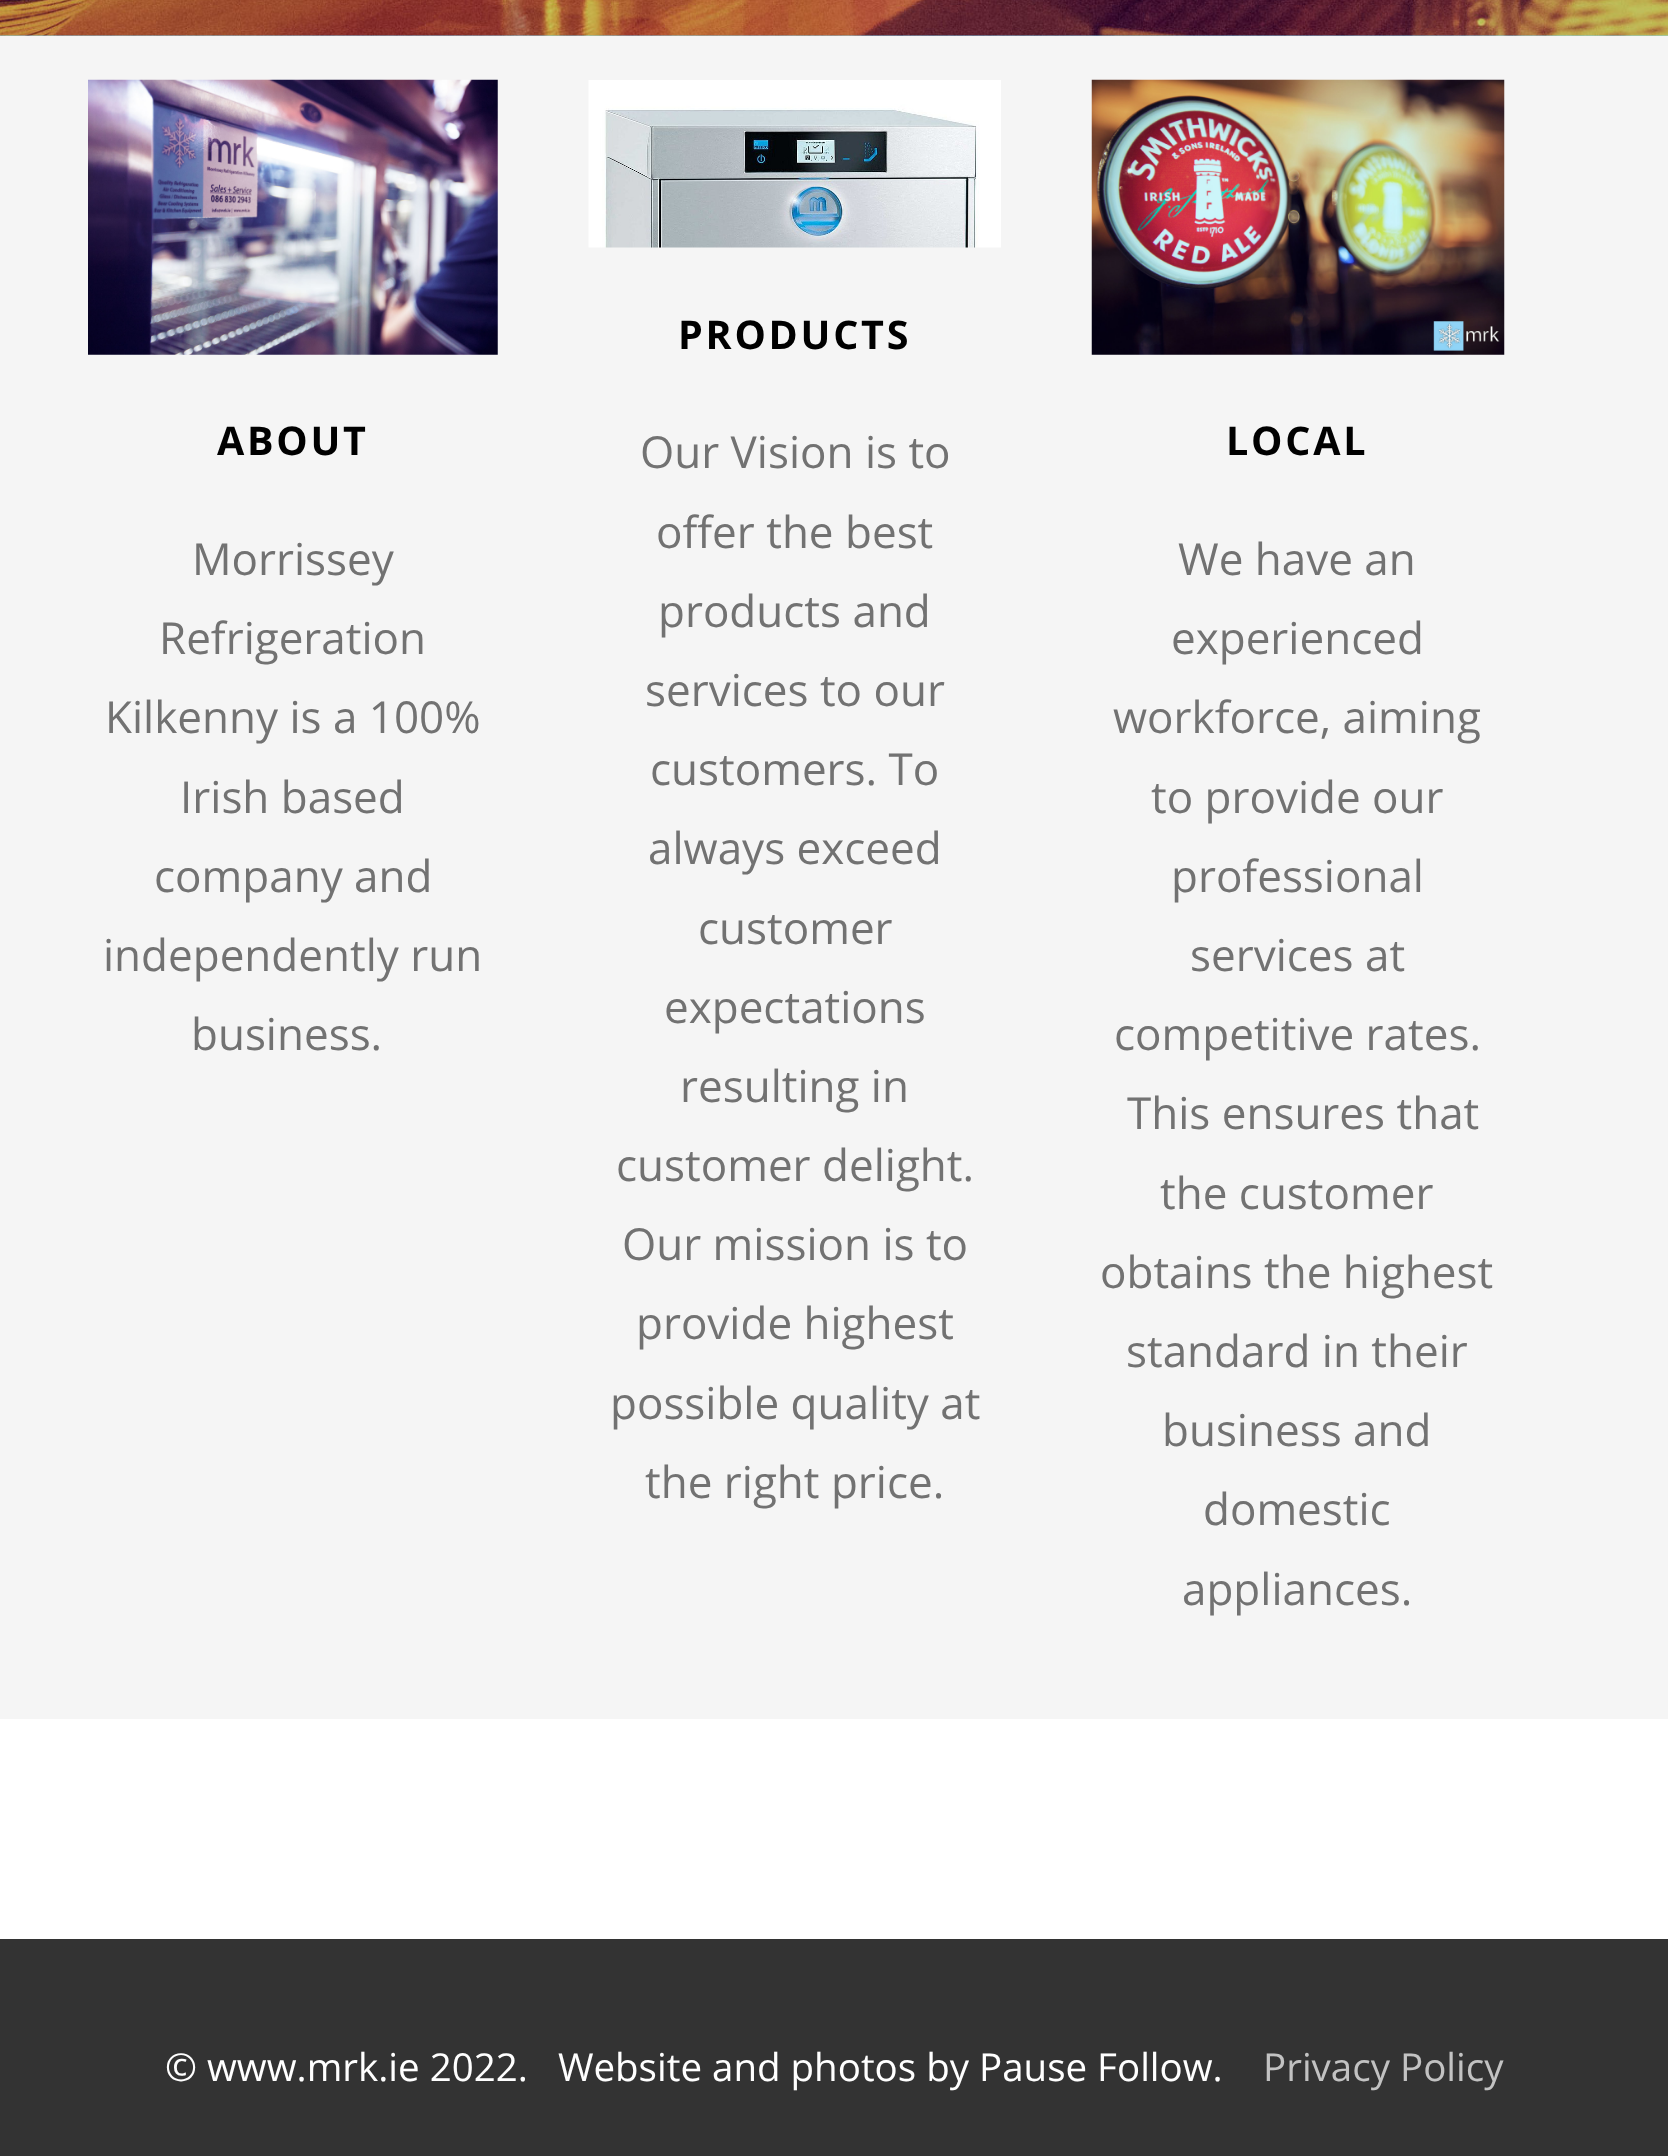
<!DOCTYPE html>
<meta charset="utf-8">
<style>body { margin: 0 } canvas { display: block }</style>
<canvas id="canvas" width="1668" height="2156"></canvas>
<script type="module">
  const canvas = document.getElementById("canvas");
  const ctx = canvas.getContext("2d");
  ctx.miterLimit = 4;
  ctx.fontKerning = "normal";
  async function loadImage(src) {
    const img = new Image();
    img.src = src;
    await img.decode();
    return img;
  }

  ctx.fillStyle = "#7ed3f6";
  ctx.fillRect(0, 0, 1668, 2156);
  ctx.drawImage(await loadImage("img1.png"), 0, 0, 1668, 36);
  ctx.fillStyle = "#f5f5f5";
  ctx.fillRect(0, 36, 1668, 1683);
  ctx.drawImage(await loadImage("img2.png"), 88, 79, 410, 276);
  ctx.letterSpacing = "2.75px";
  ctx.font = "bold 39.5px Open Sans";
  ctx.fillStyle = "#000000";
  ctx.fillText("ABOUT", 217, 455);
  ctx.letterSpacing = "0px";
  ctx.font = "44px Open Sans";
  ctx.fillStyle = "#727272";
  ctx.fillText("Morrissey", 192, 575);
  ctx.fillText("Refrigeration", 159, 654);
  ctx.fillText("Kilkenny is a 100%", 105, 733);
  ctx.fillText("Irish based", 180, 813);
  ctx.fillText("company and", 154, 892);
  ctx.fillText("independently run", 103, 971);
  ctx.fillText("business.", 191, 1050);
  ctx.drawImage(await loadImage("img3.png"), 588, 80, 413, 168);
  ctx.letterSpacing = "2.75px";
  ctx.font = "bold 39.5px Open Sans";
  ctx.fillStyle = "#000000";
  ctx.fillText("PRODUCTS", 678, 349);
  ctx.letterSpacing = "0px";
  ctx.font = "44px Open Sans";
  ctx.fillStyle = "#727272";
  ctx.fillText("Our Vision is to", 640, 468);
  ctx.fillText("offer the best", 656, 548);
  ctx.fillText("products and", 658, 627);
  ctx.fillText("services to our", 645, 706);
  ctx.fillText("customers. To", 650, 785);
  ctx.fillText("always exceed", 648, 864);
  ctx.fillText("customer", 698, 944);
  ctx.fillText("expectations", 664, 1023);
  ctx.fillText("resulting in", 680, 1102);
  ctx.fillText("customer delight.", 616, 1181);
  ctx.fillText("Our mission is to", 622, 1260);
  ctx.fillText("provide highest", 636, 1339);
  ctx.fillText("possible quality at", 610, 1419);
  ctx.fillText("the right price.", 645, 1498);
  ctx.drawImage(await loadImage("img4.png"), 1091, 79, 414, 276);
  ctx.letterSpacing = "2.75px";
  ctx.font = "bold 39.5px Open Sans";
  ctx.fillStyle = "#000000";
  ctx.fillText("LOCAL", 1226, 455);
  ctx.letterSpacing = "0px";
  ctx.font = "44px Open Sans";
  ctx.fillStyle = "#727272";
  ctx.fillText("We have an", 1178, 575);
  ctx.fillText("experienced", 1171, 654);
  ctx.fillText("workforce, aiming", 1113, 733);
  ctx.fillText("to provide our", 1151, 813);
  ctx.fillText("professional", 1171, 892);
  ctx.fillText("services at", 1190, 971);
  ctx.fillText("competitive rates.", 1114, 1050);
  ctx.fillText("This ensures that", 1127, 1129);
  ctx.fillText("the customer", 1160, 1209);
  ctx.fillText("obtains the highest", 1100, 1288);
  ctx.fillText("standard in their", 1126, 1367);
  ctx.fillText("business and", 1162, 1446);
  ctx.fillText("domestic", 1203, 1525);
  ctx.fillText("appliances.", 1182, 1605);
  ctx.fillStyle = "#ffffff";
  ctx.fillRect(0, 1719, 1668, 220);
  ctx.fillStyle = "#333333";
  ctx.fillRect(0, 1939, 1668, 217);
  ctx.font = "38.5px Open Sans";
  ctx.fillStyle = "#ffffff";
  ctx.fillText("© www.mrk.ie 2022.   Website and photos by Pause Follow.", 165, 2081);
  ctx.fillStyle = "#c2c2c2";
  ctx.fillText("Privacy Policy", 1263, 2081);
</script>
